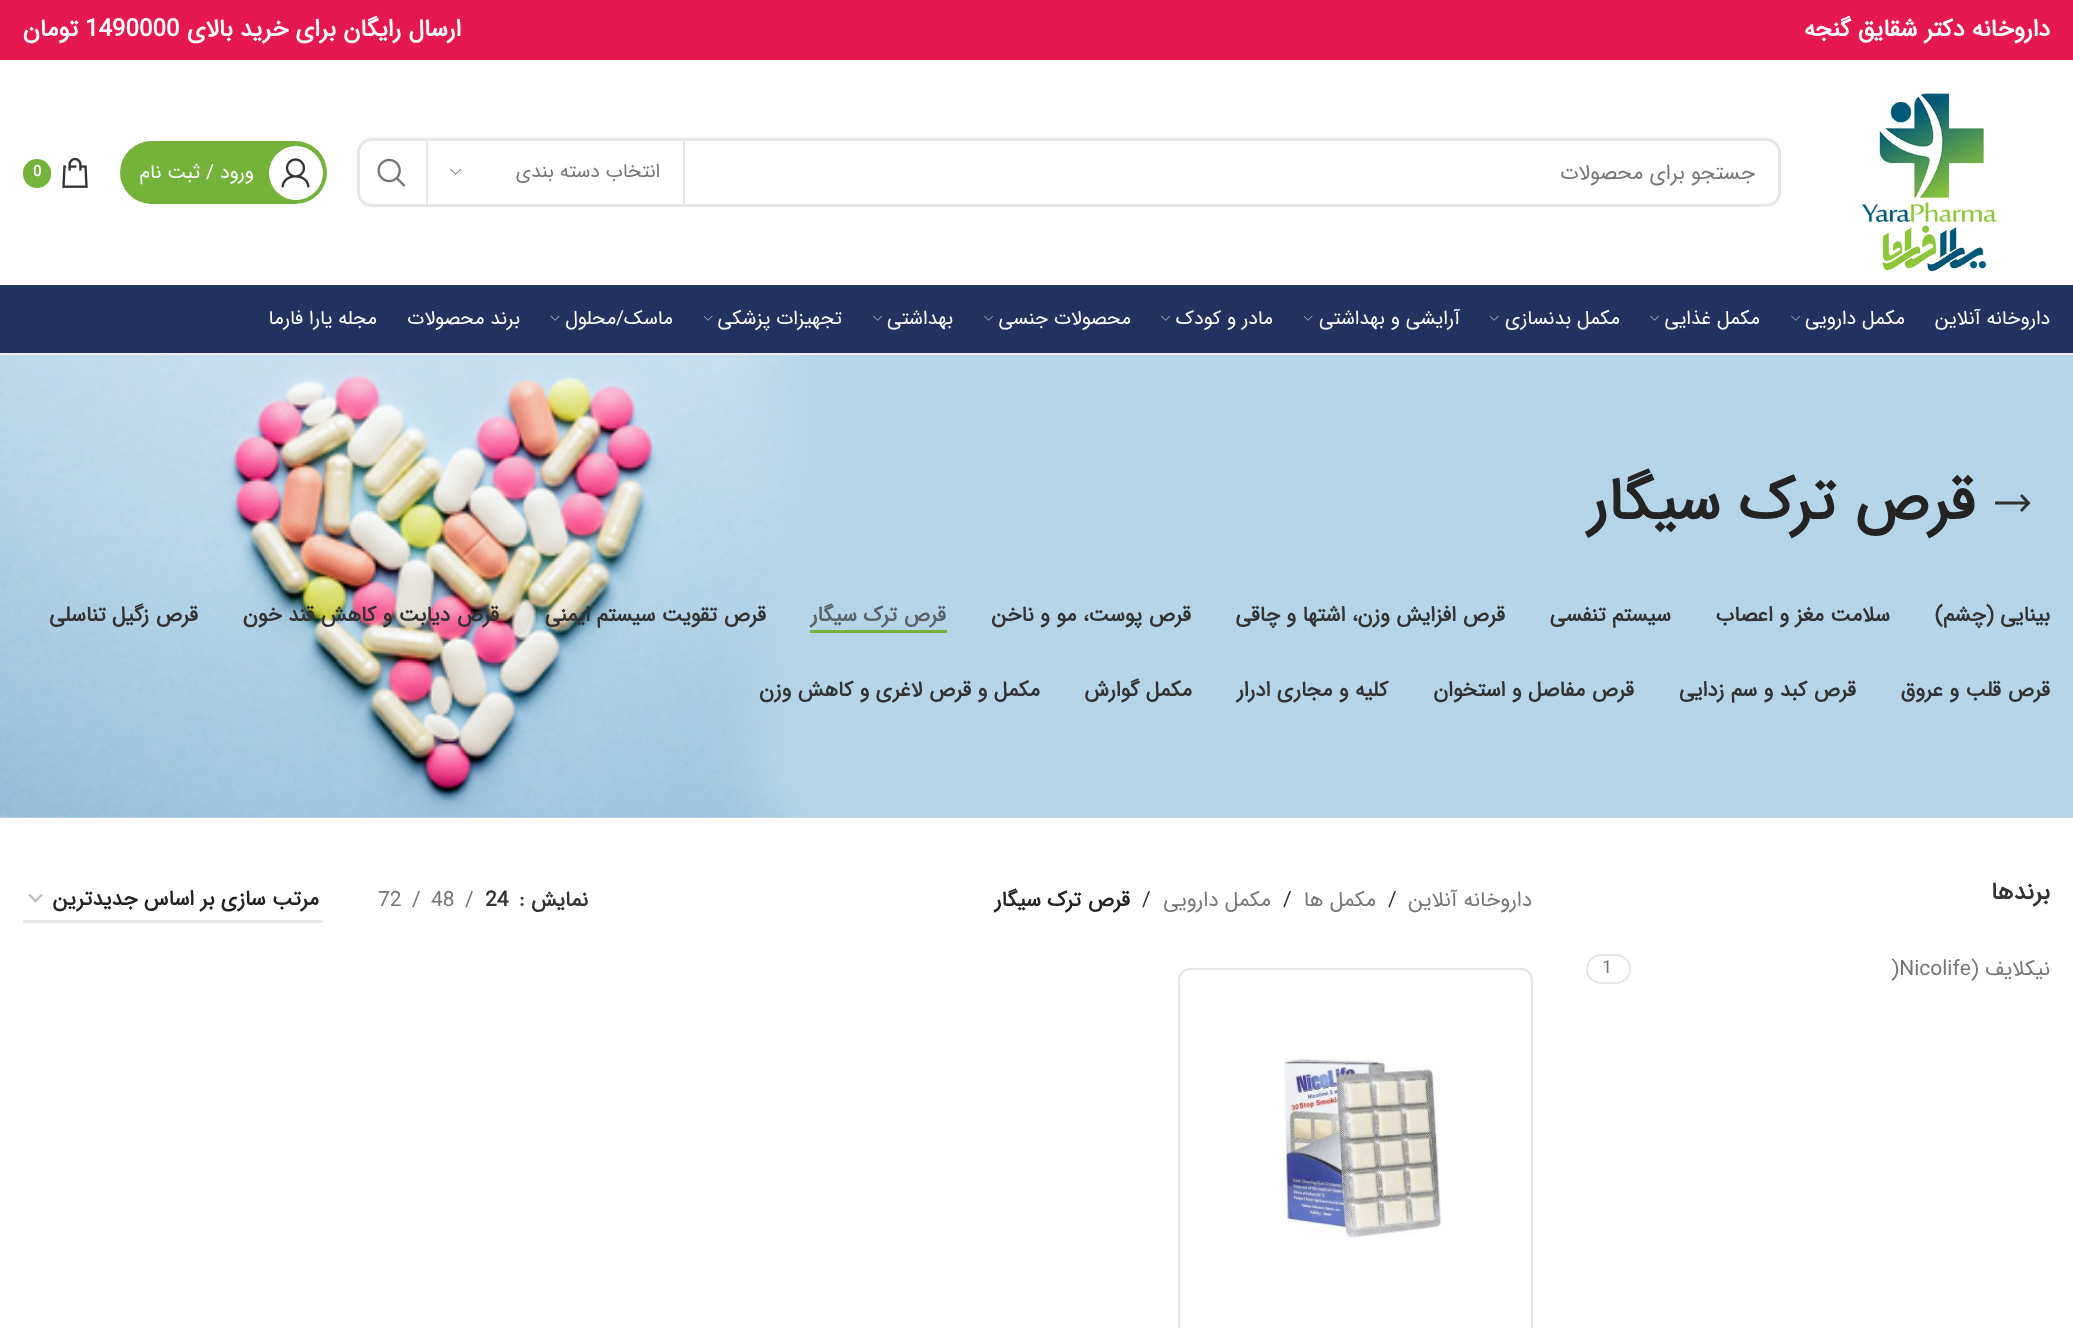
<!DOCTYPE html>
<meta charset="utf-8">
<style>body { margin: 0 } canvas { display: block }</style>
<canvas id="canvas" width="2073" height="1328"></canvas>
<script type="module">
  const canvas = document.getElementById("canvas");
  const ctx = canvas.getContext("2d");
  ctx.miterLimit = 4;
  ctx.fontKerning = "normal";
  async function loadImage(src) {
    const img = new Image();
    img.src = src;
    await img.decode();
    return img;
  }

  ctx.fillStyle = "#ffffff";
  ctx.fillRect(0, 0, 2073, 1328);
  ctx.fillStyle = "#e51850";
  ctx.fillRect(0, 0, 2073, 60);
  ctx.direction = "rtl";
  ctx.font = "bold 24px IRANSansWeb";
  ctx.fillStyle = "#ffffff";
  ctx.fillText("داروخانه دکتر شقایق گنجه", 2050, 36);
  ctx.fillText("ارسال رایگان برای خرید بالای", 461, 36);
  ctx.direction = "ltr";
  ctx.fillText("1490000", 85, 36);
  ctx.direction = "rtl";
  ctx.fillText("تومان", 78, 36);
  ctx.drawImage(await loadImage("img1.png"), 1862, 93, 135, 179);
  ctx.beginPath();
  ctx.roundRect(358.5, 139.5, 1421, 66, 13.5);
  ctx.strokeStyle = "#e6e6e6";
  ctx.lineWidth = 3;
  ctx.stroke();
  ctx.font = "21px IRANSansWeb";
  ctx.fillStyle = "#767676";
  ctx.fillText("جستجو برای محصولات", 1755, 179);
  ctx.fillStyle = "#e6e6e6";
  ctx.fillRect(683, 141, 2, 63);
  ctx.fillRect(426, 141, 2, 63);
  ctx.font = "19.5px IRANSansWeb";
  ctx.fillStyle = "#767676";
  ctx.fillText("انتخاب دسته بندی", 660, 177);
  ctx.drawImage(await loadImage("img2.png"), 450, 168, 12, 7);
  ctx.drawImage(await loadImage("img3.png"), 377, 158, 29, 29);
  ctx.fillStyle = "#75b239";
  ctx.beginPath();
  ctx.roundRect(120, 141, 207, 63, 31.5);
  ctx.fill();
  ctx.fillStyle = "#ffffff";
  ctx.beginPath();
  ctx.arc(296, 173, 27, 0, Math.PI * 2);
  ctx.fill();
  ctx.drawImage(await loadImage("img4.png"), 281, 158, 29, 30);
  ctx.fillText("ورود / ثبت نام", 254, 178);
  ctx.drawImage(await loadImage("img5.png"), 62, 157, 26, 31);
  ctx.fillStyle = "#75b239";
  ctx.beginPath();
  ctx.roundRect(23, 159, 28, 29, 14);
  ctx.fill();
  ctx.direction = "ltr";
  ctx.font = "bold 15px IRANSansWeb";
  ctx.fillStyle = "#ffffff";
  ctx.fillText("0", 33, 176);
  ctx.fillStyle = "#233361";
  ctx.fillRect(0, 285, 2073, 68);
  ctx.fillStyle = "#eeeeee";
  ctx.fillRect(0, 353, 2073, 2);
  ctx.direction = "rtl";
  ctx.font = "19.5px IRANSansWeb";
  ctx.fillStyle = "#ffffff";
  ctx.fillText("داروخانه آنلاین", 2050, 324);
  ctx.fillText("مکمل دارویی", 1905, 324);
  ctx.drawImage(await loadImage("img6.png"), 1791, 315, 9, 6);
  ctx.fillText("مکمل غذایی", 1760, 324);
  ctx.drawImage(await loadImage("img6.png"), 1650, 315, 9, 6);
  ctx.fillText("مکمل بدنسازی", 1620, 324);
  ctx.drawImage(await loadImage("img7.png"), 1489, 315, 10, 6);
  ctx.fillText("آرایشی و بهداشتی", 1460, 324);
  ctx.drawImage(await loadImage("img7.png"), 1303, 315, 10, 6);
  ctx.fillText("مادر و کودک", 1273, 324);
  ctx.drawImage(await loadImage("img6.png"), 1161, 315, 9, 6);
  ctx.fillText("محصولات جنسی", 1131, 324);
  ctx.drawImage(await loadImage("img6.png"), 984, 315, 9, 6);
  ctx.fillText("بهداشتی", 953, 324);
  ctx.drawImage(await loadImage("img6.png"), 873, 315, 9, 6);
  ctx.fillText("تجهیزات پزشکی", 842, 324);
  ctx.drawImage(await loadImage("img7.png"), 703, 315, 10, 6);
  ctx.fillText("ماسک/محلول", 673, 324);
  ctx.drawImage(await loadImage("img7.png"), 550, 315, 10, 6);
  ctx.fillText("برند محصولات", 520, 324);
  ctx.fillText("مجله یارا فارما", 377, 324);
  ctx.fillStyle = "#c7d8f7";
  ctx.fillRect(0, 817, 2073, 1);
  ctx.drawImage(await loadImage("img8.png"), 0, 355, 2073, 463);
  ctx.fillStyle = "#333333";
  ctx.beginPath();
  ctx.moveTo(2030.5, 503);
  ctx.lineTo(2022, 494);
  ctx.lineTo(2020, 496);
  ctx.lineTo(2025, 501.5);
  ctx.lineTo(1995, 501.5);
  ctx.lineTo(1995, 504.5);
  ctx.lineTo(2025, 504.5);
  ctx.lineTo(2020, 510);
  ctx.lineTo(2022, 512);
  ctx.closePath();
  ctx.fill();
  ctx.font = "bold 60px IRANSansWeb";
  ctx.fillStyle = "#242424";
  ctx.fillText("قرص ترک سیگار", 1975, 519);
  ctx.font = "bold 21px IRANSansWeb";
  ctx.fillStyle = "#333333";
  ctx.fillText("بینایی (چشم)", 2050, 621);
  ctx.fillText("سلامت مغز و اعصاب", 1890, 621);
  ctx.fillText("سیستم تنفسی", 1671, 621);
  ctx.fillText("قرص افزایش وزن، اشتها و چاقی", 1505, 621);
  ctx.fillText("قرص پوست، مو و ناخن", 1191, 621);
  ctx.fillStyle = "#5a6369";
  ctx.fillText("قرص ترک سیگار", 946, 621);
  ctx.fillStyle = "#75b239";
  ctx.fillRect(810, 630, 137, 3);
  ctx.fillStyle = "#333333";
  ctx.fillText("قرص تقویت سیستم ایمنی", 766, 621);
  ctx.fillText("قرص دیابت و کاهش قند خون", 499, 621);
  ctx.fillText("قرص زگیل تناسلی", 198, 621);
  ctx.fillText("قرص قلب و عروق", 2050, 696);
  ctx.fillText("قرص کبد و سم زدایی", 1856, 696);
  ctx.fillText("قرص مفاصل و استخوان", 1634, 696);
  ctx.fillText("کلیه و مجاری ادرار", 1388, 696);
  ctx.fillText("مکمل گوارش", 1192, 696);
  ctx.fillText("مکمل و قرص لاغری و کاهش وزن", 1040, 696);
  ctx.font = "bold 24px IRANSansWeb";
  ctx.fillText("برندها", 2050, 899);
  ctx.font = "21px IRANSansWeb";
  ctx.fillStyle = "#767676";
  ctx.fillText("نیکلایف (", 2050, 975);
  ctx.direction = "ltr";
  ctx.fillText(")Nicolife", 1891, 975);
  ctx.beginPath();
  ctx.roundRect(1587, 955, 43, 28, 14);
  ctx.strokeStyle = "#e4e4e4";
  ctx.lineWidth = 2;
  ctx.stroke();
  ctx.font = "18px IRANSansWeb";
  ctx.fillText("1", 1602, 973);
  ctx.direction = "rtl";
  ctx.font = "21px IRANSansWeb";
  ctx.fillText("داروخانه آنلاین", 1532, 906);
  ctx.direction = "ltr";
  ctx.fillStyle = "#333333";
  ctx.fillText("/", 1388, 906);
  ctx.direction = "rtl";
  ctx.fillStyle = "#767676";
  ctx.fillText("مکمل ها", 1376, 906);
  ctx.direction = "ltr";
  ctx.fillStyle = "#333333";
  ctx.fillText("/", 1283, 906);
  ctx.direction = "rtl";
  ctx.fillStyle = "#767676";
  ctx.fillText("مکمل دارویی", 1271, 906);
  ctx.direction = "ltr";
  ctx.fillStyle = "#333333";
  ctx.fillText("/", 1142, 906);
  ctx.direction = "rtl";
  ctx.font = "bold 21px IRANSansWeb";
  ctx.fillStyle = "#242424";
  ctx.fillText("قرص ترک سیگار", 1130, 906);
  ctx.fillStyle = "#333333";
  ctx.fillText("نمایش", 588, 906);
  ctx.direction = "ltr";
  ctx.fillText(":", 519, 906);
  ctx.fillText("24", 485, 906);
  ctx.font = "21px IRANSansWeb";
  ctx.fillStyle = "#767676";
  ctx.fillText("/", 465, 906);
  ctx.fillText("48", 431, 906);
  ctx.fillText("/", 412, 906);
  ctx.fillText("72", 378, 906);
  ctx.beginPath();
  ctx.moveTo(29, 894.5);
  ctx.lineTo(35.5, 901);
  ctx.lineTo(42, 894.5);
  ctx.strokeStyle = "#bbbbbb";
  ctx.lineWidth = 2.2;
  ctx.stroke();
  ctx.fillStyle = "#e6e6e6";
  ctx.fillRect(23, 920, 300, 3);
  ctx.direction = "rtl";
  ctx.font = "bold 21px IRANSansWeb";
  ctx.fillStyle = "#242424";
  ctx.fillText("مرتب سازی بر اساس جدیدترین", 319, 905);
  ctx.beginPath();
  ctx.roundRect(1179, 969, 353, 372, 11);
  ctx.strokeStyle = "#e4e4e4";
  ctx.lineWidth = 2;
  ctx.stroke();
  ctx.drawImage(await loadImage("img9.png"), 1283, 1057, 159, 181);
</script>
